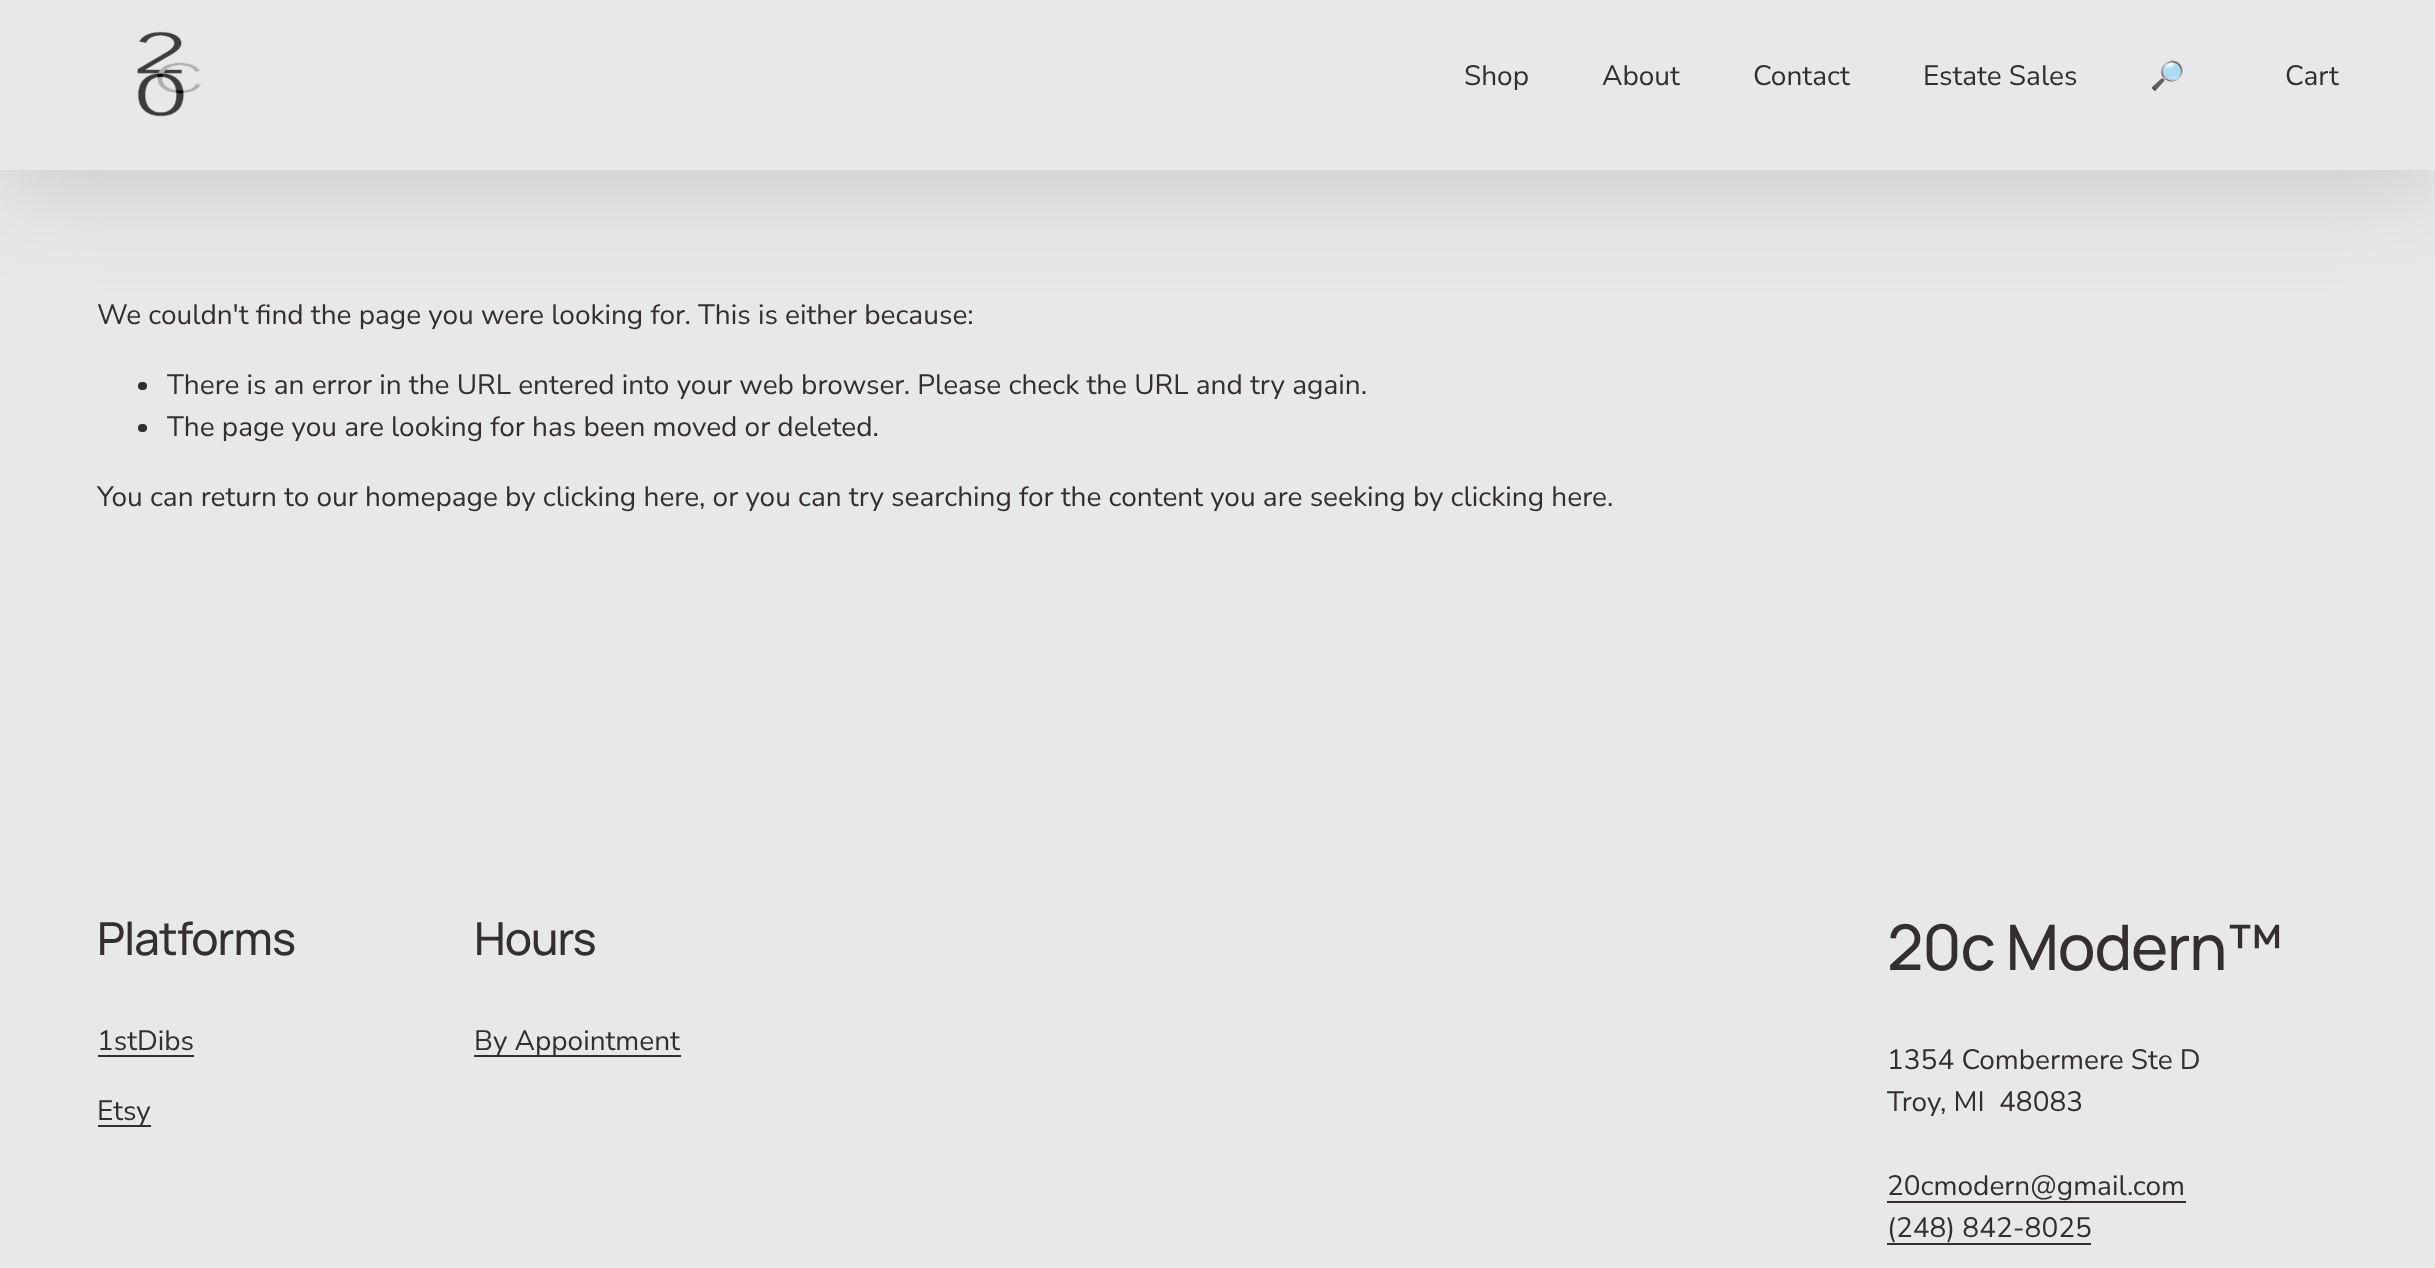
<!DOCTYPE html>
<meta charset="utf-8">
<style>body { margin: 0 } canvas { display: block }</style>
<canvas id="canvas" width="2435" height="1268"></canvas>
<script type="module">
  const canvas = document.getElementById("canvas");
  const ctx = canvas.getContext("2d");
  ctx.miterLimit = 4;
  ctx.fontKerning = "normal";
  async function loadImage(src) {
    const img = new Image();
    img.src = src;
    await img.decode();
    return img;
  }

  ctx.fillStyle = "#e8e8e8";
  ctx.fillRect(0, 0, 2435, 1268);
  ctx.save();
  ctx.beginPath();
  ctx.moveTo(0, 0);
  ctx.lineTo(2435, 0);
  ctx.lineTo(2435, 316);
  ctx.lineTo(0, 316);
  ctx.closePath();
  ctx.moveTo(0, -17);
  ctx.lineTo(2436, -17);
  ctx.lineTo(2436, 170);
  ctx.lineTo(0, 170);
  ctx.closePath();
  ctx.clip("evenodd");
  ctx.fillStyle = "#cdcccc";
  ctx.filter = "blur(42px)";
  ctx.beginPath();
  ctx.rect(2, 5, 2432, 184);
  ctx.fill();
  ctx.filter = "none";
  ctx.restore();
  ctx.drawImage(await loadImage("img1.png"), 137, 31, 64, 86);
  ctx.font = "28px Nunito Sans";
  ctx.fillStyle = "#342e2e";
  ctx.fillText("Shop", 1464, 85);
  ctx.fillText("About", 1602, 85);
  ctx.fillText("Contact", 1753, 85);
  ctx.fillText("Estate Sales", 1923, 85);
  ctx.font = "28px Noto Color Emoji";
  ctx.fillText("🔎", 2150, 85);
  ctx.font = "28px Nunito Sans";
  ctx.fillText("Cart", 2285, 85);
  ctx.fillText("We couldn't find the page you were looking for. This is either because:", 97, 324);
  ctx.beginPath();
  ctx.roundRect(138, 382, 9, 8, 4);
  ctx.fill();
  ctx.fillText("There is an error in the URL entered into your web browser. Please check the URL and try again.", 167, 394);
  ctx.beginPath();
  ctx.roundRect(138, 424, 9, 8, 4);
  ctx.fill();
  ctx.fillText("The page you are looking for has been moved or deleted.", 167, 436);
  ctx.fillText("You can return to our homepage by clicking here, or you can try searching for the content you are seeking by clicking here.", 97, 506);
  ctx.letterSpacing = "-1px";
  ctx.font = "500 45.5px Manrope";
  ctx.fillText("Platforms", 97, 955);
  ctx.letterSpacing = "0px";
  ctx.font = "28px Nunito Sans";
  ctx.fillText("1stDibs", 97, 1050);
  ctx.fillRect(98, 1055, 96, 2);
  ctx.fillRect(98, 1125, 53, 2);
  ctx.fillText("Etsy", 97, 1120);
  ctx.letterSpacing = "-1px";
  ctx.font = "500 45.5px Manrope";
  ctx.fillText("Hours", 474, 955);
  ctx.fillRect(474, 1055, 207, 2);
  ctx.letterSpacing = "0px";
  ctx.font = "28px Nunito Sans";
  ctx.fillText("By Appointment", 474, 1050);
  ctx.letterSpacing = "-1.25px";
  ctx.font = "500 63px Manrope";
  ctx.fillText("20c Modern™", 1887, 970);
  ctx.letterSpacing = "0px";
  ctx.font = "28px Nunito Sans";
  ctx.fillText("1354 Combermere Ste D", 1887, 1069);
  ctx.fillText("Troy, MI  48083", 1887, 1111);
  ctx.fillText("20cmodern@gmail.com", 1887, 1195);
  ctx.fillRect(1887, 1201, 299, 2);
  ctx.fillText("(248) 842-8025", 1887, 1237);
  ctx.fillRect(1887, 1243, 204, 2);
</script>
